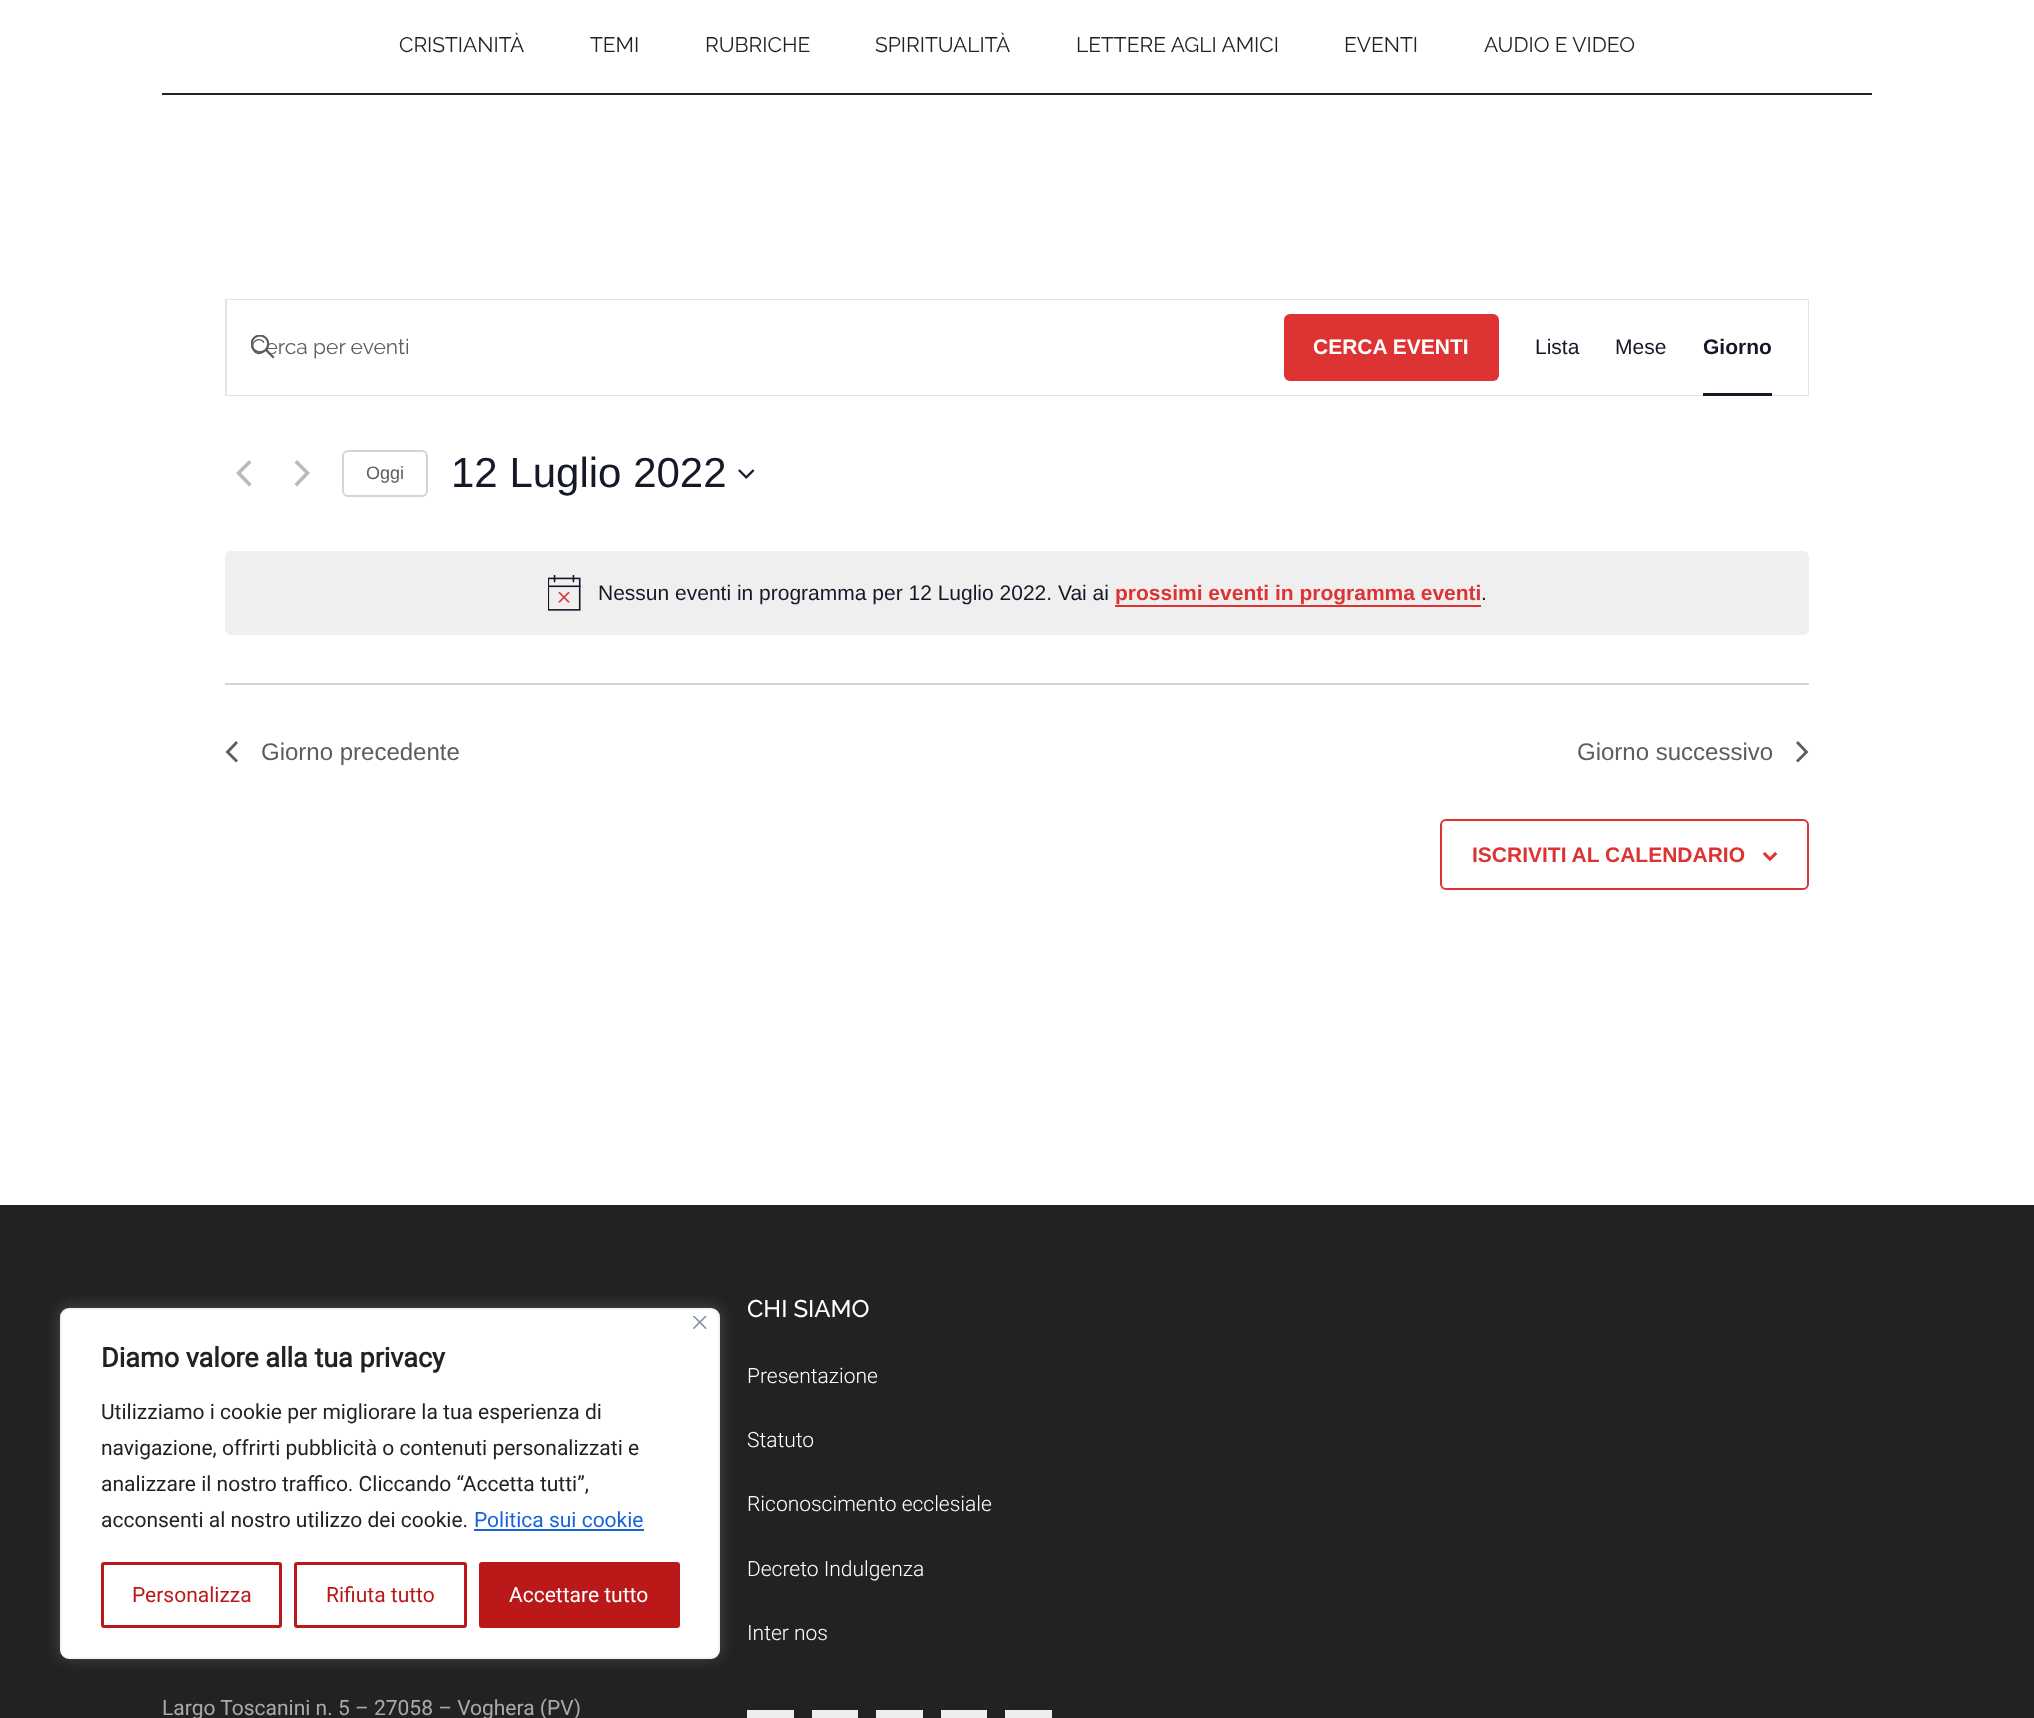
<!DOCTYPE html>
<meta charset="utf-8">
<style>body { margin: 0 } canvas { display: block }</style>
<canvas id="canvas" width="2034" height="1718"></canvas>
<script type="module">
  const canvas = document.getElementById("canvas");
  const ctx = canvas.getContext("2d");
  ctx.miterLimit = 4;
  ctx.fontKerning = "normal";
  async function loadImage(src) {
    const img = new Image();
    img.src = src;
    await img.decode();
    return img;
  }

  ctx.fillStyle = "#ffffff";
  ctx.fillRect(0, 0, 2034, 1718);
  ctx.fillStyle = "#222222";
  ctx.fillRect(162, 93, 1710, 2);
  ctx.font = "21px Raleway";
  ctx.fillText("CRISTIANITÀ", 399, 52);
  ctx.fillText("TEMI", 590, 52);
  ctx.fillText("RUBRICHE", 705, 52);
  ctx.fillText("SPIRITUALITÀ", 875, 52);
  ctx.fillText("LETTERE AGLI AMICI", 1076, 52);
  ctx.fillText("EVENTI", 1344, 52);
  ctx.fillText("AUDIO E VIDEO", 1484, 52);
  ctx.strokeStyle = "#e4e4e4";
  ctx.lineWidth = 2;
  ctx.strokeRect(226, 300, 1582, 95);
  ctx.fillStyle = "#ffffff";
  ctx.fillRect(227, 300, 1581, 95);
  ctx.fillStyle = "#5d5d5d";
  ctx.fillText("Cerca per eventi", 251, 354);
  ctx.drawImage(await loadImage("img1.png"), 251, 335, 24, 24);
  ctx.fillStyle = "#dd3333";
  ctx.beginPath();
  ctx.roundRect(1284, 314, 215, 67, 6);
  ctx.fill();
  ctx.font = "bold 21px Liberation Sans";
  ctx.fillStyle = "#ffffff";
  ctx.fillText("CERCA EVENTI", 1313, 354);
  ctx.font = "21px Liberation Sans";
  ctx.fillStyle = "#141827";
  ctx.fillText("Lista", 1535, 354);
  ctx.fillText("Mese", 1615, 354);
  ctx.font = "bold 21px Liberation Sans";
  ctx.fillText("Giorno", 1703, 354);
  ctx.fillRect(1703, 393, 69, 3);
  ctx.fillStyle = "#bababa";
  ctx.beginPath();
  ctx.moveTo(251.5, 484);
  ctx.lineTo(249, 486.5);
  ctx.lineTo(236, 473);
  ctx.lineTo(249, 460);
  ctx.lineTo(251.5, 462.5);
  ctx.lineTo(241, 473);
  ctx.closePath();
  ctx.fill();
  ctx.beginPath();
  ctx.moveTo(294.5, 462.5);
  ctx.lineTo(297, 460);
  ctx.lineTo(310, 473);
  ctx.lineTo(297, 486.5);
  ctx.lineTo(294.5, 484);
  ctx.lineTo(305, 473);
  ctx.closePath();
  ctx.fill();
  ctx.beginPath();
  ctx.roundRect(343, 451, 84, 45, 5);
  ctx.strokeStyle = "#d5d5d5";
  ctx.stroke();
  ctx.font = "18px Liberation Sans";
  ctx.fillStyle = "#5d5d5d";
  ctx.fillText("Oggi", 366, 479);
  ctx.font = "42px Liberation Sans";
  ctx.fillStyle = "#141827";
  ctx.fillText("12 Luglio 2022", 451, 487);
  ctx.drawImage(await loadImage("img2.png"), 738, 469, 17, 10);
  ctx.fillStyle = "#efeff0";
  ctx.beginPath();
  ctx.roundRect(225, 551, 1584, 84, 6);
  ctx.fill();
  ctx.drawImage(await loadImage("img3.png"), 548, 575, 33, 36);
  ctx.font = "21px Liberation Sans";
  ctx.fillStyle = "#141827";
  ctx.fillText("Nessun eventi in programma per 12 Luglio 2022. Vai ai", 598, 600);
  ctx.font = "bold 21px Liberation Sans";
  ctx.fillStyle = "#dd3333";
  ctx.fillText("prossimi eventi in programma eventi", 1115, 600);
  ctx.fillRect(1115, 605, 366, 2);
  ctx.font = "21px Liberation Sans";
  ctx.fillStyle = "#141827";
  ctx.fillText(".", 1481, 600);
  ctx.fillStyle = "#d5d5d5";
  ctx.fillRect(225, 683, 1584, 2);
  ctx.fillStyle = "#5d5d5d";
  ctx.beginPath();
  ctx.moveTo(238, 760.5);
  ctx.lineTo(236, 762.5);
  ctx.lineTo(225.5, 752);
  ctx.lineTo(236, 741);
  ctx.lineTo(238, 743);
  ctx.lineTo(229.5, 752);
  ctx.closePath();
  ctx.fill();
  ctx.font = "24px Liberation Sans";
  ctx.fillText("Giorno precedente", 261, 760);
  ctx.fillText("Giorno successivo", 1577, 760);
  ctx.beginPath();
  ctx.moveTo(1796, 743);
  ctx.lineTo(1798, 741);
  ctx.lineTo(1808.5, 752);
  ctx.lineTo(1798, 762.5);
  ctx.lineTo(1796, 760.5);
  ctx.lineTo(1804.5, 752);
  ctx.closePath();
  ctx.fill();
  ctx.beginPath();
  ctx.roundRect(1441, 820, 367, 69, 5);
  ctx.strokeStyle = "#dd3333";
  ctx.stroke();
  ctx.font = "bold 21px Liberation Sans";
  ctx.fillStyle = "#dd3333";
  ctx.fillText("ISCRIVITI AL CALENDARIO", 1472, 862);
  ctx.drawImage(await loadImage("img4.png"), 1763, 852, 15, 9);
  ctx.fillStyle = "#222222";
  ctx.fillRect(0, 1205, 2034, 513);
  ctx.font = "500 24px Raleway";
  ctx.fillStyle = "#ffffff";
  ctx.fillText("CHI SIAMO", 747, 1317);
  ctx.font = "300 21px Roboto";
  ctx.fillText("Presentazione", 747, 1383);
  ctx.fillText("Statuto", 747, 1447);
  ctx.fillText("Riconoscimento ecclesiale", 747, 1511);
  ctx.fillText("Decreto Indulgenza", 747, 1576);
  ctx.fillText("Inter nos", 747, 1640);
  ctx.fillStyle = "#eeeeee";
  ctx.fillRect(747, 1710, 47, 8);
  ctx.fillRect(812, 1710, 46, 8);
  ctx.fillRect(876, 1710, 47, 8);
  ctx.fillRect(941, 1710, 46, 8);
  ctx.fillRect(1005, 1710, 47, 8);
  ctx.font = "21px Roboto";
  ctx.fillStyle = "#aaaaaa";
  ctx.fillText("Largo Toscanini n. 5 – 27058 – Voghera (PV)", 162, 1715);
  ctx.fillStyle = "rgba(172, 171, 171, 0.3)";
  ctx.filter = "blur(7.5px)";
  ctx.beginPath();
  ctx.roundRect(60, 1307, 660, 351, 9);
  ctx.fill();
  ctx.filter = "none";
  ctx.fillStyle = "#ffffff";
  ctx.beginPath();
  ctx.roundRect(61, 1309, 658, 349, 8);
  ctx.fill();
  ctx.strokeStyle = "#f4f4f4";
  ctx.stroke();
  ctx.drawImage(await loadImage("img5.png"), 693, 1316, 14, 13);
  ctx.font = "bold 27px Roboto";
  ctx.fillStyle = "#222222";
  ctx.fillText("Diamo valore alla tua privacy", 101, 1367);
  ctx.font = "21px Roboto";
  ctx.fillText("Utilizziamo i cookie per migliorare la tua esperienza di", 101, 1419);
  ctx.fillText("navigazione, offrirti pubblicità o contenuti personalizzati e", 101, 1455);
  ctx.fillText("analizzare il nostro traffico. Cliccando “Accetta tutti”,", 101, 1491);
  ctx.fillText("acconsenti al nostro utilizzo dei cookie.", 101, 1527);
  ctx.fillStyle = "#1863dc";
  ctx.fillText("Politica sui cookie", 474, 1527);
  ctx.fillRect(474, 1529, 170, 2);
  ctx.beginPath();
  ctx.roundRect(102.5, 1563.5, 178, 63, 1.5);
  ctx.strokeStyle = "#bb1919";
  ctx.lineWidth = 3;
  ctx.stroke();
  ctx.fillStyle = "#bb1919";
  ctx.fillText("Personalizza", 132, 1602);
  ctx.beginPath();
  ctx.roundRect(295.5, 1563.5, 170, 63, 1.5);
  ctx.stroke();
  ctx.fillText("Rifiuta tutto", 326, 1602);
  ctx.beginPath();
  ctx.roundRect(480.5, 1563.5, 198, 63, 1.5);
  ctx.fill();
  ctx.stroke();
  ctx.fillStyle = "#ffffff";
  ctx.fillText("Accettare tutto", 509, 1602);
</script>
